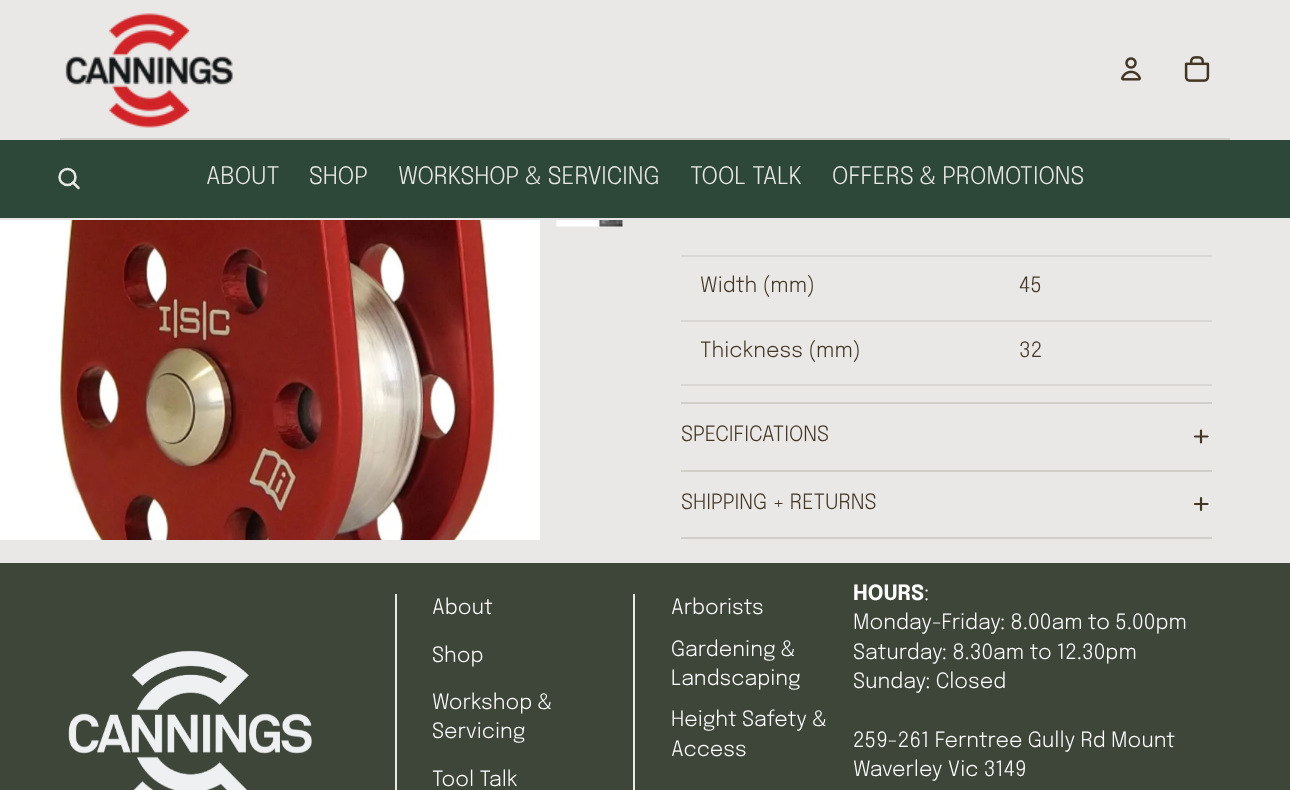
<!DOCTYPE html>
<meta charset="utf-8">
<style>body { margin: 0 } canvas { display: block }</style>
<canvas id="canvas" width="1290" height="790"></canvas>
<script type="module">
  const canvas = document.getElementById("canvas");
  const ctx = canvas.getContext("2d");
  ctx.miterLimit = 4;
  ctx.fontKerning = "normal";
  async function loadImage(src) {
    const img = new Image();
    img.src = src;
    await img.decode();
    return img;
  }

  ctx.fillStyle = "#eae8e6";
  ctx.fillRect(0, 0, 1290, 790);
  ctx.fillStyle = "#d1cdc9";
  ctx.fillRect(60, 138, 1170, 2);
  ctx.drawImage(await loadImage("img1.png"), 65, 13, 168, 115);
  ctx.drawImage(await loadImage("img2.png"), 1121, 57, 20, 24);
  ctx.drawImage(await loadImage("img3.png"), 1184, 56, 26, 26);
  ctx.fillStyle = "#2d4739";
  ctx.fillRect(0, 140, 1290, 78);
  ctx.fillStyle = "#e6e6e6";
  ctx.fillRect(0, 218, 1290, 2);
  ctx.beginPath();
  ctx.arc(67.5, 177, 8, 0, Math.PI * 2);
  ctx.strokeStyle = "#eae8e6";
  ctx.lineWidth = 2.5;
  ctx.stroke();
  ctx.beginPath();
  ctx.moveTo(73, 182.5);
  ctx.lineTo(78.5, 188);
  ctx.lineCap = "round";
  ctx.lineJoin = "round";
  ctx.stroke();
  ctx.font = "300 24px Epilogue";
  ctx.fillStyle = "#eae8e6";
  ctx.fillText("ABOUT", 206, 184);
  ctx.fillText("SHOP", 309, 184);
  ctx.fillText("WORKSHOP & SERVICING", 398, 184);
  ctx.fillText("TOOL TALK", 690, 184);
  ctx.fillText("OFFERS & PROMOTIONS", 832, 184);
  ctx.drawImage(await loadImage("img4.png"), 0, 220, 540, 320);
  ctx.drawImage(await loadImage("img5.png"), 556, 220, 67, 7);
  ctx.fillStyle = "#d9d6d3";
  ctx.fillRect(681, 255, 531, 2);
  ctx.fillRect(681, 320, 531, 2);
  ctx.font = "300 21px Epilogue";
  ctx.fillStyle = "#433625";
  ctx.fillText("Width (mm)", 700, 292);
  ctx.fillText("45", 1019, 292);
  ctx.fillStyle = "#d9d6d3";
  ctx.fillRect(681, 384, 531, 2);
  ctx.fillStyle = "#433625";
  ctx.fillText("Thickness (mm)", 700, 357);
  ctx.fillText("32", 1019, 357);
  ctx.fillStyle = "#d1cdc9";
  ctx.fillRect(681, 402, 531, 2);
  ctx.fillStyle = "#433625";
  ctx.fillText("SPECIFICATIONS", 681, 441);
  ctx.beginPath();
  ctx.moveTo(1195, 436.5);
  ctx.lineTo(1207.5, 436.5);
  ctx.moveTo(1201, 430.5);
  ctx.lineTo(1201, 442.5);
  ctx.strokeStyle = "#433625";
  ctx.lineWidth = 2.2;
  ctx.lineJoin = "miter";
  ctx.stroke();
  ctx.fillStyle = "#d1cdc9";
  ctx.fillRect(681, 470, 531, 2);
  ctx.fillRect(681, 537, 531, 2);
  ctx.fillStyle = "#433625";
  ctx.fillText("SHIPPING + RETURNS", 681, 509);
  ctx.beginPath();
  ctx.moveTo(1195, 504);
  ctx.lineTo(1207.5, 504);
  ctx.moveTo(1201, 498);
  ctx.lineTo(1201, 510);
  ctx.stroke();
  ctx.fillStyle = "#3e4539";
  ctx.fillRect(0, 563, 1290, 227);
  ctx.drawImage(await loadImage("img6.png"), 68, 650, 244, 140);
  ctx.fillStyle = "#eae8e6";
  ctx.fillRect(395, 594, 2, 196);
  ctx.fillStyle = "#ffffff";
  ctx.fillText("About", 432, 614);
  ctx.fillText("Shop", 432, 662);
  ctx.fillText("Workshop &", 432, 709);
  ctx.fillText("Servicing", 432, 738);
  ctx.fillText("Tool Talk", 432, 786);
  ctx.fillStyle = "#eae8e6";
  ctx.fillRect(633, 594, 2, 196);
  ctx.fillStyle = "#ffffff";
  ctx.fillText("Arborists", 671, 614);
  ctx.fillText("Gardening &", 671, 656);
  ctx.fillText("Landscaping", 671, 685);
  ctx.fillText("Height Safety &", 671, 726);
  ctx.fillText("Access", 671, 756);
  ctx.font = "bold 21px Epilogue";
  ctx.fillText("HOURS", 853, 600);
  ctx.font = "300 21px Epilogue";
  ctx.fillText(":", 924, 600);
  ctx.fillText("Monday-Friday: 8.00am to 5.00pm", 853, 629);
  ctx.fillText("Saturday: 8.30am to 12.30pm", 853, 659);
  ctx.fillText("Sunday: Closed", 853, 688);
  ctx.fillText("259-261 Ferntree Gully Rd Mount", 853, 747);
  ctx.fillText("Waverley Vic 3149", 853, 776);
</script>
